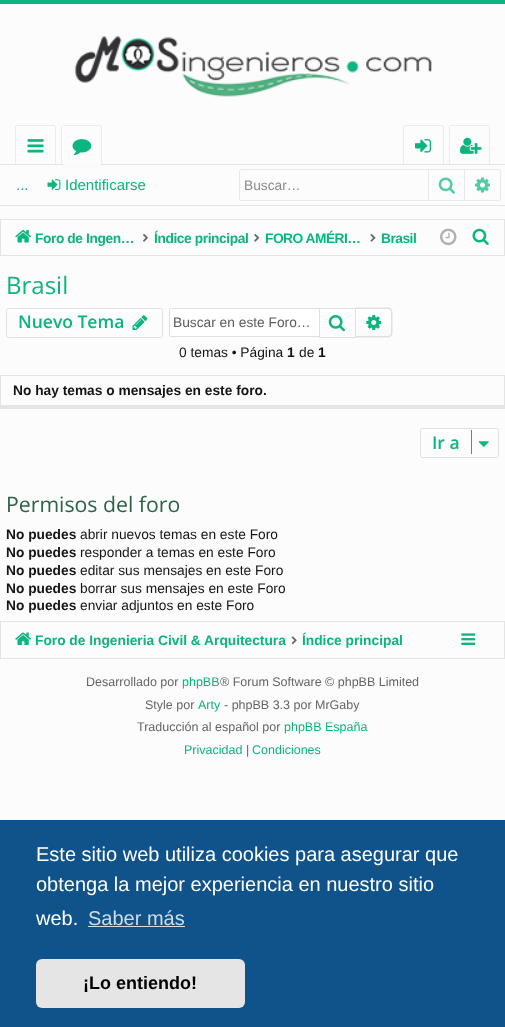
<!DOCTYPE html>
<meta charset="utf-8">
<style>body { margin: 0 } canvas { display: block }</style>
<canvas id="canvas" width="505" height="1027"></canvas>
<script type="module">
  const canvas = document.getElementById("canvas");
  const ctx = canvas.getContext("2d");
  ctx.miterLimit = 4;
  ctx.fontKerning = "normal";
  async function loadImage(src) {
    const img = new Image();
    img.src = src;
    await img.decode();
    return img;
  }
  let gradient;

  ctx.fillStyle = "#fcfcfc";
  ctx.fillRect(0, 0, 505, 1027);
  ctx.fillStyle = "#0bb57f";
  ctx.fillRect(0, 0, 505, 4);
  ctx.drawImage(await loadImage("img1.png"), 74, 36, 358, 61);
  ctx.fillStyle = "#ebebeb";
  ctx.fillRect(16, 125, 39, 1);
  ctx.fillRect(55, 126, 1, 39);
  ctx.fillRect(15, 126, 1, 39);
  ctx.drawImage(await loadImage("img2.png"), 27, 139, 17, 14);
  ctx.fillRect(63, 125, 38, 1);
  ctx.fillRect(101, 126, 1, 39);
  ctx.fillRect(61, 126, 1, 39);
  ctx.drawImage(await loadImage("img3.png"), 72, 139, 20, 17);
  ctx.fillRect(443, 126, 1, 39);
  ctx.fillRect(403, 126, 1, 39);
  ctx.fillRect(489, 126, 1, 39);
  ctx.fillRect(449, 126, 1, 39);
  ctx.fillStyle = "#e4e4e4";
  ctx.fillRect(0, 164, 505, 1);
  ctx.fillStyle = "#fafafa";
  ctx.beginPath();
  ctx.roundRect(63, 163, 38, 5, [2.5, 2.5, 0, 0]);
  ctx.fill();
  ctx.fillStyle = "#ebebeb";
  ctx.fillRect(404, 125, 39, 1);
  ctx.drawImage(await loadImage("img4.png"), 415, 139, 17, 14);
  ctx.fillRect(450, 125, 39, 1);
  ctx.drawImage(await loadImage("img5.png"), 460, 137, 22, 17);
  ctx.fillStyle = "#e4e4e4";
  ctx.fillRect(0, 205, 505, 1);
  ctx.font = "15px Liberation Sans";
  ctx.fillStyle = "#0bb57f";
  ctx.fillText("...", 16, 190);
  ctx.drawImage(await loadImage("img6.png"), 47, 179, 14, 11);
  ctx.fillText("Identificarse", 65, 190);
  ctx.beginPath();
  ctx.roundRect(239.5, 169.5, 261, 31, 2);
  ctx.strokeStyle = "#e8e8e8";
  ctx.stroke();
  ctx.font = "13.75px Liberation Sans";
  ctx.fillStyle = "#8b8b8b";
  ctx.fillText("Buscar…", 244, 190);
  ctx.fillStyle = "#e8e8e8";
  ctx.fillRect(464, 170, 1, 30);
  ctx.fillRect(428, 170, 1, 30);
  ctx.drawImage(await loadImage("img7.png"), 438, 177, 17, 17);
  ctx.drawImage(await loadImage("img8.png"), 475, 177, 15, 16);
  ctx.strokeStyle = "#e4e4e4";
  ctx.strokeRect(0.5, 219.5, 504, 36);
  ctx.drawImage(await loadImage("img9.png"), 15, 230, 16, 13);
  ctx.letterSpacing = "-0.4px";
  ctx.font = "bold 13.75px Liberation Sans";
  ctx.fillStyle = "#0bb57f";
  ctx.fillText("Foro de Ingen…", 35, 243);
  ctx.drawImage(await loadImage("img10.png"), 143, 233, 5, 9);
  ctx.fillText("Índice principal", 154, 243);
  ctx.drawImage(await loadImage("img11.png"), 254, 233, 6, 9);
  ctx.letterSpacing = "-0.5px";
  ctx.fillText("FORO AMÉRI…", 265, 243);
  ctx.drawImage(await loadImage("img12.png"), 370, 233, 6, 9);
  ctx.fillText("Brasil", 381, 243);
  ctx.drawImage(await loadImage("img13.png"), 440, 228, 17, 18);
  ctx.drawImage(await loadImage("img14.png"), 472, 228, 17, 17);
  ctx.letterSpacing = "0px";
  ctx.font = "24px Open Sans";
  ctx.fillText("Brasil", 6, 294);
  gradient = ctx.createLinearGradient(84, 309, 84, 336);
  gradient.addColorStop(0, "#ffffff");
  gradient.addColorStop(1, "#fafafa");
  ctx.fillStyle = gradient;
  ctx.fillRect(6, 309, 157, 3);
  ctx.save();
  ctx.beginPath();
  ctx.roundRect(6, 308, 157, 30, 2.5);
  ctx.clip();
  gradient = ctx.createLinearGradient(84, 336, 84, 364);
  gradient.addColorStop(0, "#ffffff");
  gradient.addColorStop(1, "#fafafa");
  ctx.fillStyle = gradient;
  ctx.fillRect(6, 336, 157, 2);
  ctx.restore();
  ctx.beginPath();
  ctx.roundRect(6.5, 308.5, 156, 29, 2);
  ctx.strokeStyle = "#e0e0e0";
  ctx.stroke();
  ctx.font = "600 17.5px Open Sans";
  ctx.fillStyle = "#0bb57f";
  ctx.fillText("Nuevo Tema", 18, 328);
  ctx.drawImage(await loadImage("img15.png"), 132, 315, 16, 15);
  ctx.fillStyle = "#ffffff";
  ctx.beginPath();
  ctx.roundRect(170, 309, 149, 27, [1, 0, 0, 1]);
  ctx.fill();
  ctx.fillStyle = "#e0e0e0";
  ctx.fillRect(170, 308, 149, 1);
  ctx.fillRect(170, 336, 149, 1);
  ctx.fillRect(169, 309, 1, 27);
  ctx.font = "13.75px Liberation Sans";
  ctx.fillStyle = "#5b5b5b";
  ctx.fillText("Buscar en este Foro…", 173, 327);
  gradient = ctx.createLinearGradient(338, 309, 338, 336);
  gradient.addColorStop(0, "#ffffff");
  gradient.addColorStop(1, "#fafafa");
  ctx.fillStyle = gradient;
  ctx.fillRect(320, 309, 35, 3);
  gradient = ctx.createLinearGradient(338, 336, 338, 364);
  gradient.addColorStop(0, "#ffffff");
  gradient.addColorStop(1, "#fafafa");
  ctx.fillStyle = gradient;
  ctx.fillRect(319, 336, 37, 1);
  ctx.strokeRect(319.5, 308.5, 36, 29);
  ctx.drawImage(await loadImage("img16.png"), 328, 315, 17, 17);
  gradient = ctx.createLinearGradient(374, 309, 374, 336);
  gradient.addColorStop(0, "#ffffff");
  gradient.addColorStop(1, "#fafafa");
  ctx.fillStyle = gradient;
  ctx.beginPath();
  ctx.roundRect(356, 309, 35, 27, [0, 4, 4, 0]);
  ctx.fill();
  ctx.fillStyle = "#e0e0e0";
  ctx.beginPath();
  ctx.moveTo(356, 307.5);
  ctx.lineTo(387.5, 307.5);
  ctx.bezierCurveTo(390.5, 307.5, 392.5, 309.5, 392.5, 312.5);
  ctx.lineTo(392.5, 332.5);
  ctx.bezierCurveTo(392.5, 335.5, 390.5, 337.5, 387.5, 337.5);
  ctx.lineTo(356, 337.5);
  ctx.closePath();
  ctx.moveTo(356, 309);
  ctx.lineTo(387.5, 309);
  ctx.bezierCurveTo(389.5, 309, 391, 310.5, 391, 312.5);
  ctx.lineTo(391, 332.5);
  ctx.bezierCurveTo(391, 334.5, 389.5, 336, 387.5, 336);
  ctx.lineTo(356, 336);
  ctx.closePath();
  ctx.fill("evenodd");
  ctx.drawImage(await loadImage("img17.png"), 366, 315, 16, 15);
  ctx.fillStyle = "#141414";
  ctx.fillText("0 temas • Página", 179, 357);
  ctx.font = "bold 13.75px Liberation Sans";
  ctx.fillText("1", 287, 357);
  ctx.font = "13.75px Liberation Sans";
  ctx.fillText("de", 299, 357);
  ctx.font = "bold 13.75px Liberation Sans";
  ctx.fillText("1", 318, 357);
  ctx.fillStyle = "#e4e4e4";
  ctx.fillRect(0, 375, 505, 1);
  ctx.fillRect(504, 375, 1, 34);
  ctx.fillRect(0, 405, 505, 4);
  ctx.fillRect(0, 375, 1, 34);
  ctx.fillStyle = "#141414";
  ctx.fillText("No hay temas o mensajes en este foro.", 13, 395);
  gradient = ctx.createLinearGradient(459, 429, 459, 456);
  gradient.addColorStop(0, "#ffffff");
  gradient.addColorStop(1, "#fafafa");
  ctx.fillStyle = gradient;
  ctx.fillRect(420, 429, 79, 3);
  ctx.save();
  ctx.beginPath();
  ctx.roundRect(420, 428, 79, 30, 2.5);
  ctx.clip();
  gradient = ctx.createLinearGradient(459, 456, 459, 484);
  gradient.addColorStop(0, "#ffffff");
  gradient.addColorStop(1, "#fafafa");
  ctx.fillStyle = gradient;
  ctx.fillRect(420, 456, 79, 2);
  ctx.restore();
  ctx.beginPath();
  ctx.roundRect(420.5, 428.5, 78, 29, 2);
  ctx.stroke();
  ctx.font = "600 17.5px Open Sans";
  ctx.fillStyle = "#0bb57f";
  ctx.fillText("Ir a", 432, 449);
  ctx.fillRect(471, 430, 1, 24);
  ctx.drawImage(await loadImage("img18.png"), 478, 441, 11, 6);
  ctx.font = "21.25px Open Sans";
  ctx.fillStyle = "#2c6248";
  ctx.fillText("Permisos del foro", 6, 512);
  ctx.font = "bold 13.75px Liberation Sans";
  ctx.fillStyle = "#141414";
  ctx.fillText("No puedes", 6, 539);
  ctx.font = "13.75px Liberation Sans";
  ctx.fillText("abrir nuevos temas en este Foro", 80, 539);
  ctx.font = "bold 13.75px Liberation Sans";
  ctx.fillText("No puedes", 6, 557);
  ctx.font = "13.75px Liberation Sans";
  ctx.fillText("responder a temas en este Foro", 80, 557);
  ctx.font = "bold 13.75px Liberation Sans";
  ctx.fillText("No puedes", 6, 575);
  ctx.font = "13.75px Liberation Sans";
  ctx.fillText("editar sus mensajes en este Foro", 80, 575);
  ctx.font = "bold 13.75px Liberation Sans";
  ctx.fillText("No puedes", 6, 593);
  ctx.font = "13.75px Liberation Sans";
  ctx.fillText("borrar sus mensajes en este Foro", 80, 593);
  ctx.font = "bold 13.75px Liberation Sans";
  ctx.fillText("No puedes", 6, 610);
  ctx.font = "13.75px Liberation Sans";
  ctx.fillText("enviar adjuntos en este Foro", 80, 610);
  ctx.strokeStyle = "#e4e4e4";
  ctx.strokeRect(0.5, 621.5, 504, 37);
  ctx.drawImage(await loadImage("img19.png"), 15, 632, 16, 13);
  ctx.font = "bold 13.75px Liberation Sans";
  ctx.fillStyle = "#0bb57f";
  ctx.fillText("Foro de Ingenieria Civil & Arquitectura", 35, 645);
  ctx.drawImage(await loadImage("img20.png"), 291, 636, 6, 9);
  ctx.fillText("Índice principal", 302, 645);
  ctx.drawImage(await loadImage("img21.png"), 461, 633, 15, 12);
  ctx.font = "12.5px Liberation Sans";
  ctx.fillStyle = "#656565";
  ctx.fillText("Desarrollado por", 86, 686);
  ctx.fillStyle = "#0bb57f";
  ctx.fillText("phpBB", 182, 686);
  ctx.fillStyle = "#656565";
  ctx.fillText("® Forum Software © phpBB Limited", 220, 686);
  ctx.fillText("Style por", 145, 709);
  ctx.fillStyle = "#0bb57f";
  ctx.fillText("Arty", 198, 709);
  ctx.fillStyle = "#656565";
  ctx.fillText("- phpBB 3.3 por MrGaby", 224, 709);
  ctx.fillText("Traducción al español por", 137, 731);
  ctx.fillStyle = "#0bb57f";
  ctx.fillText("phpBB España", 284, 731);
  ctx.fillText("Privacidad", 184, 754);
  ctx.fillStyle = "#656565";
  ctx.fillText("|", 246, 754);
  ctx.fillStyle = "#0bb57f";
  ctx.fillText("Condiciones", 252, 754);
  ctx.fillStyle = "#0f538a";
  ctx.fillRect(0, 820, 505, 207);
  ctx.font = "20px Liberation Sans";
  ctx.fillStyle = "#ffffff";
  ctx.fillText("Este sitio web utiliza cookies para asegurar que", 36, 861);
  ctx.fillText("obtenga la mejor experiencia en nuestro sitio", 36, 891);
  ctx.fillText("web.", 36, 925);
  ctx.fillStyle = "#cfdde8";
  ctx.fillText("Saber más", 88, 925);
  ctx.fillRect(88, 926, 97, 1);
  ctx.fillStyle = "#e5e5e5";
  ctx.beginPath();
  ctx.roundRect(36, 959, 209, 49, 6);
  ctx.fill();
  ctx.font = "bold 18px Liberation Sans";
  ctx.fillStyle = "#000000";
  ctx.fillText("¡Lo entiendo!", 83, 989);
</script>
